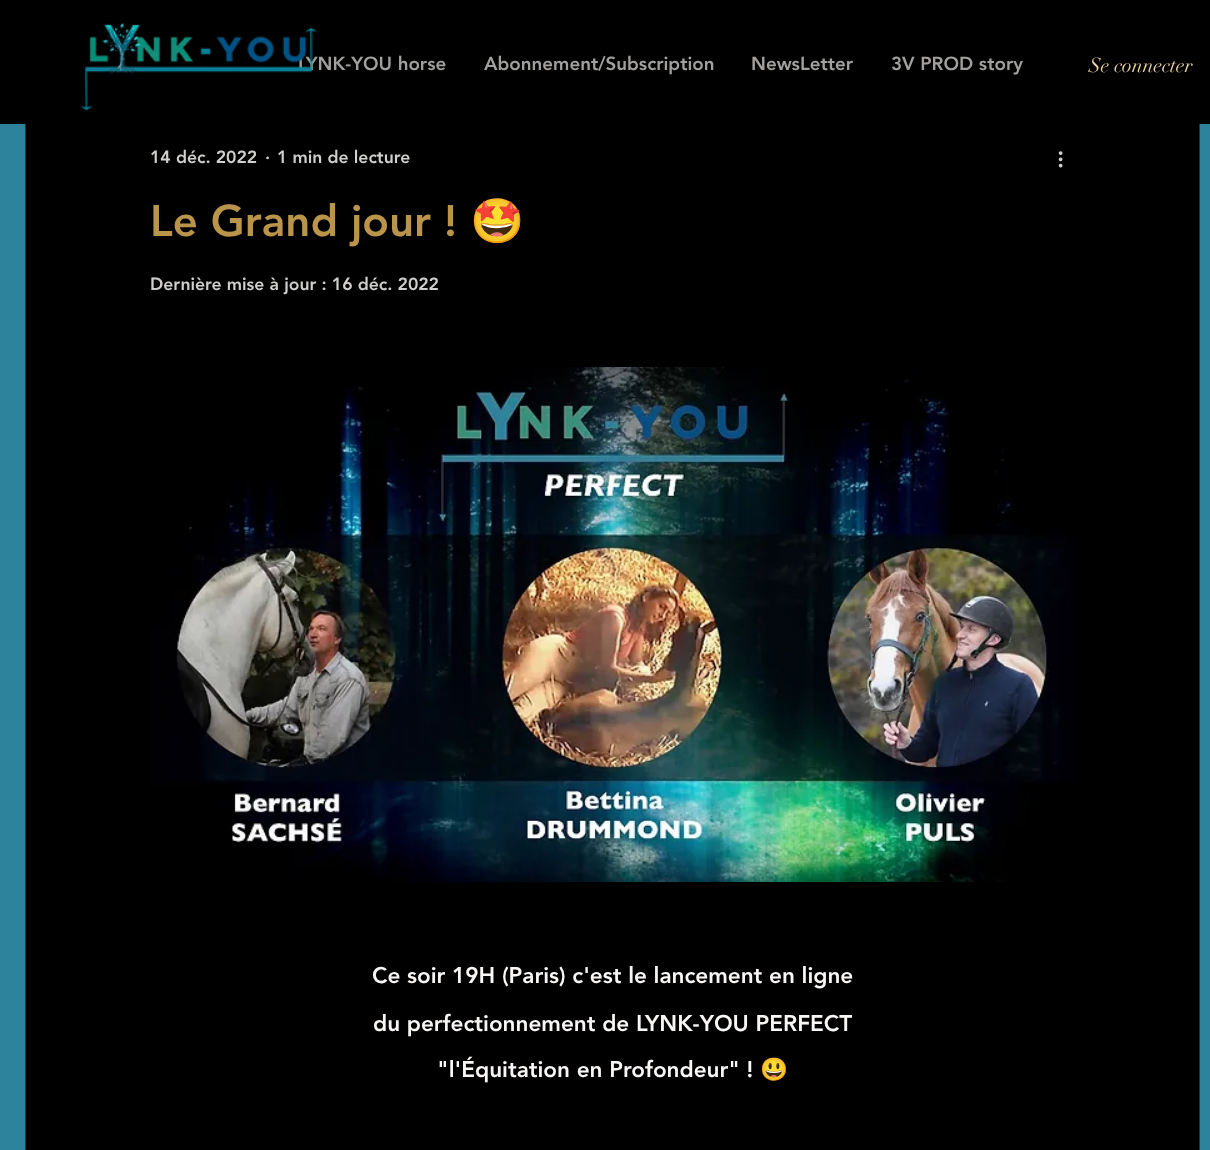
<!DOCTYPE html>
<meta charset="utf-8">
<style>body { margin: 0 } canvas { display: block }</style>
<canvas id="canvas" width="1210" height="1150"></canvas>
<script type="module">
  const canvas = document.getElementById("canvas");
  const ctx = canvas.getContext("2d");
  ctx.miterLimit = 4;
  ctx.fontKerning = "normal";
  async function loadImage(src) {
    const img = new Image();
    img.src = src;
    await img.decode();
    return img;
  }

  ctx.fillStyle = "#2d829c";
  ctx.fillRect(0, 0, 1210, 1150);
  ctx.fillStyle = "#000000";
  ctx.fillRect(26, 124, 1173, 1026);
  ctx.strokeStyle = "#32322f";
  ctx.strokeRect(25.5, 66.5, 1174, 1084);
  ctx.fillRect(0, 0, 1210, 124);
  ctx.font = "900 18.75px 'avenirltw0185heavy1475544'";
  ctx.fillStyle = "#a1a09e";
  ctx.fillText("LYNK-YOU horse", 298, 70);
  ctx.drawImage(await loadImage("img1.png"), 80, 22, 238, 89);
  ctx.fillText("Abonnement/Subscription", 484, 70);
  ctx.fillText("NewsLetter", 751, 70);
  ctx.fillText("3V PROD story", 891, 70);
  ctx.font = "20px didot";
  ctx.fillStyle = "#eed7a6";
  ctx.fillText("Se connecter", 1089, 72);
  ctx.font = "900 17.5px 'avenirltw0185heavy1475544'";
  ctx.fillStyle = "#d0cfcd";
  ctx.fillText("14 déc. 2022", 150, 163);
  ctx.fillText("·", 265, 163);
  ctx.fillText("1 min de lecture", 277, 163);
  ctx.drawImage(await loadImage("img2.png"), 1058, 151, 5, 17);
  ctx.font = "900 43.75px 'avenirltw0185heavy1475544'";
  ctx.fillStyle = "#ba944a";
  ctx.fillText("Le Grand jour !", 150, 236);
  ctx.font = "43.75px Noto Color Emoji";
  ctx.fillText("🤩", 470, 236);
  ctx.font = "900 17.5px 'avenirltw0185heavy1475544'";
  ctx.fillStyle = "#d0cfcd";
  ctx.fillText("Dernière mise à jour : 16 déc. 2022", 150, 290);
  ctx.drawImage(await loadImage("img3.png"), 150, 367, 925, 515);
  ctx.font = "900 22.5px 'avenirltw0185heavy1475544'";
  ctx.fillStyle = "#f9f7f6";
  ctx.fillText("Ce soir 19H (Paris) c'est le lancement en ligne", 372, 983);
  ctx.fillText("du perfectionnement de LYNK-YOU PERFECT", 373, 1031);
  ctx.fillText("\"l'Équitation en Profondeur\" !", 437, 1077);
  ctx.font = "bold 22.5px Noto Color Emoji";
  ctx.fillText("😃", 760, 1077);
</script>
